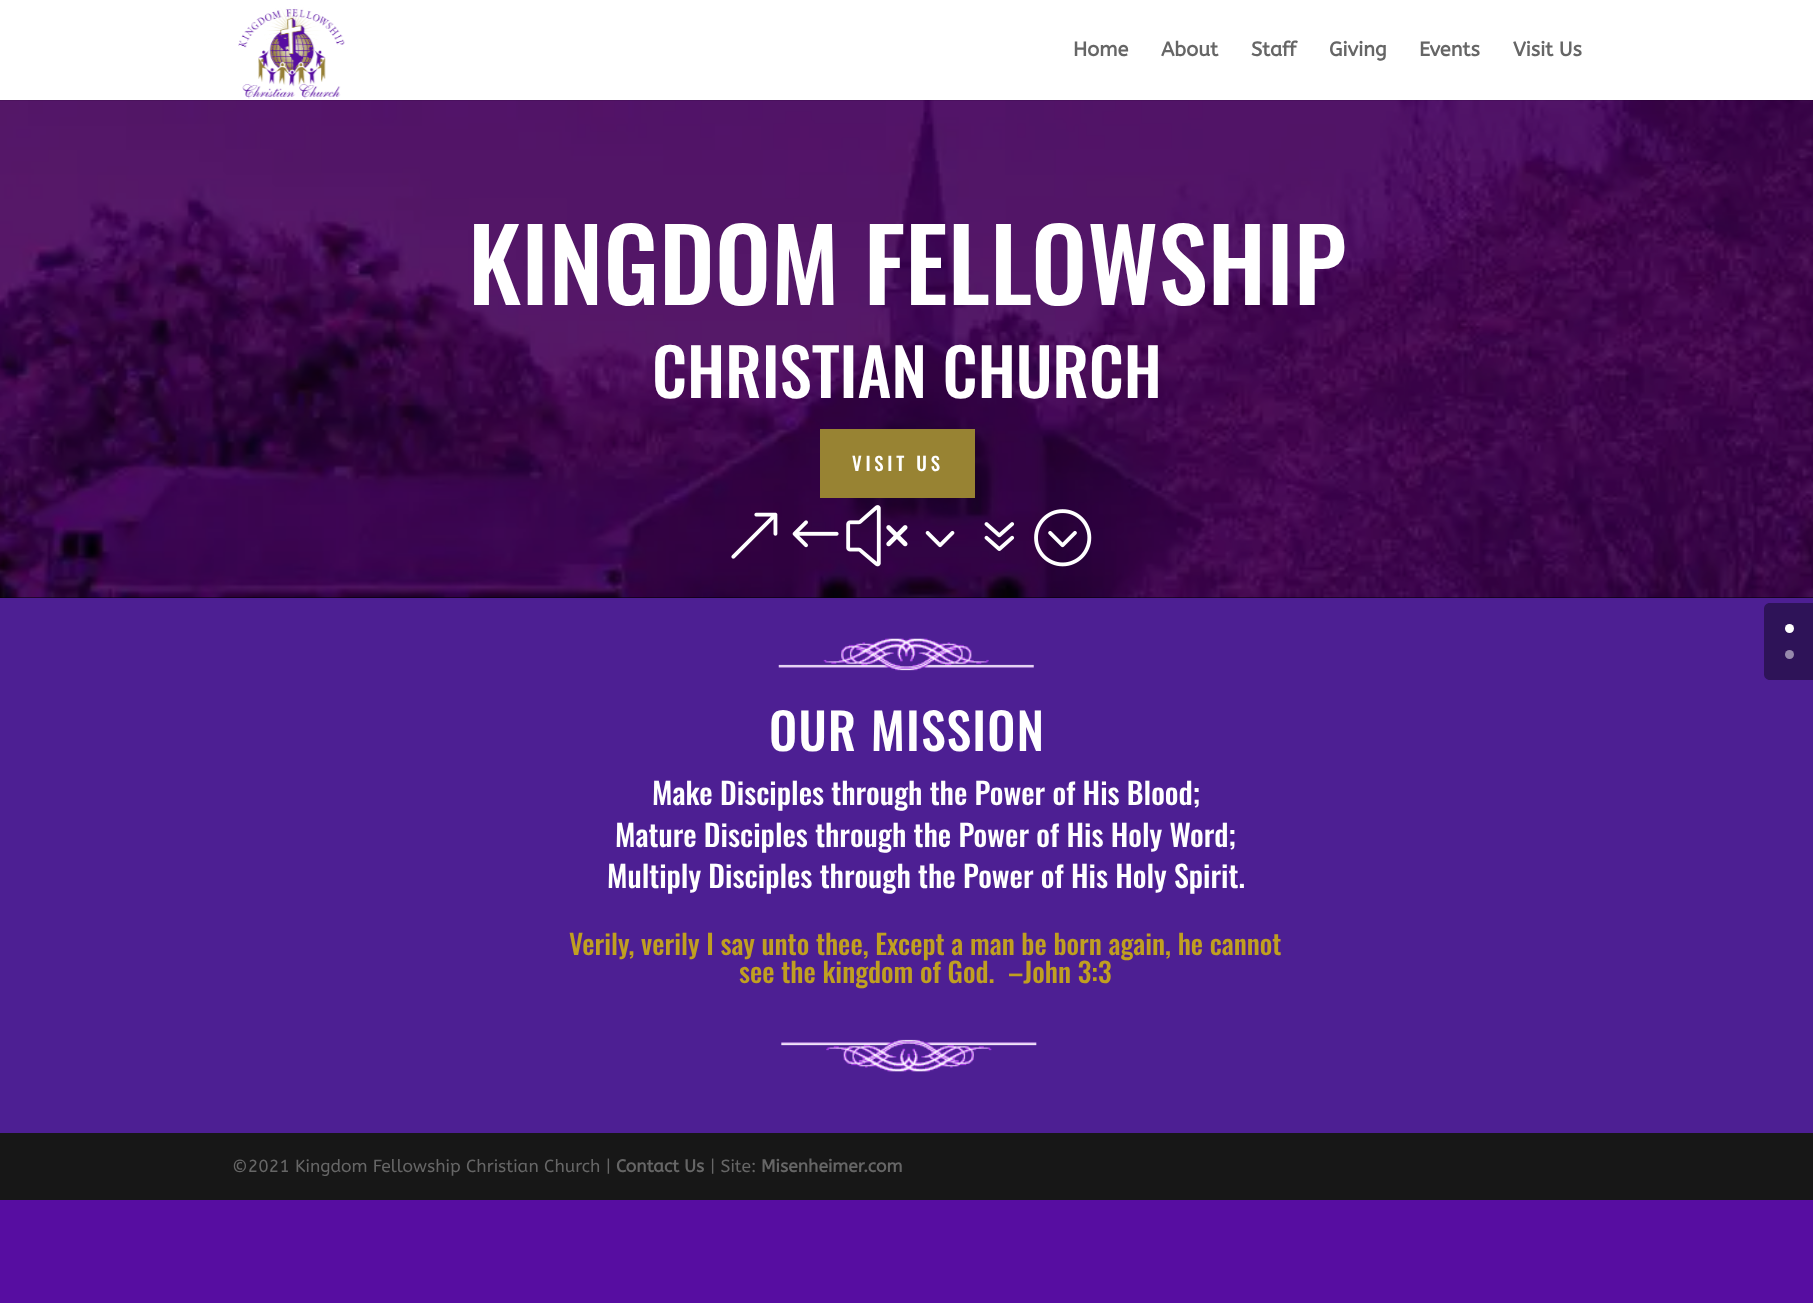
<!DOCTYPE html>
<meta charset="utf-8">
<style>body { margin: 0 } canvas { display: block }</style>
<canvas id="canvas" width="1813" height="1303"></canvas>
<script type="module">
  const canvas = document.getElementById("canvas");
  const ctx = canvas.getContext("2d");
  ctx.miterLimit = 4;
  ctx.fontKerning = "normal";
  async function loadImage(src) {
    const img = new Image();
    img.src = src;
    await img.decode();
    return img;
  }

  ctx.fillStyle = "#570da1";
  ctx.fillRect(0, 0, 1813, 1303);
  ctx.fillStyle = "#000000";
  ctx.fillRect(0, 597, 1813, 1);
  ctx.drawImage(await loadImage("img2.png"), 0, 100, 1813, 498);
  ctx.fillStyle = "rgba(0, 0, 0, 0.1)";
  ctx.beginPath();
  ctx.moveTo(0, 100);
  ctx.lineTo(0, 101);
  ctx.lineTo(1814, 101);
  ctx.lineTo(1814, 1);
  ctx.lineTo(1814, 100);
  ctx.closePath();
  ctx.fill();
  ctx.fillStyle = "#ffffff";
  ctx.fillRect(0, 0, 1813, 100);
  ctx.drawImage(await loadImage("img1.png"), 238, 7, 107, 92);
  ctx.font = "bold 20px ABeeZee";
  ctx.fillStyle = "#666666";
  ctx.fillText("Home", 1073, 56);
  ctx.fillText("About", 1161, 56);
  ctx.fillText("Staff", 1251, 56);
  ctx.fillText("Giving", 1329, 56);
  ctx.fillText("Events", 1419, 56);
  ctx.fillText("Visit Us", 1513, 56);
  ctx.font = "500 100px Oswald";
  ctx.fillStyle = "#ffffff";
  ctx.fillText("KINGDOM FELLOWSHIP", 468, 305);
  ctx.font = "500 65px Oswald";
  ctx.fillText("CHRISTIAN CHURCH", 652, 398);
  ctx.fillStyle = "#988333";
  ctx.fillRect(820, 429, 155, 69);
  ctx.letterSpacing = "3.75px";
  ctx.font = "500 18.75px Oswald";
  ctx.fillStyle = "#ffffff";
  ctx.fillText("VISIT US", 852, 471);
  ctx.drawImage(await loadImage("img3.png"), 731, 505, 361, 62);
  ctx.fillStyle = "#4d1f93";
  ctx.fillRect(0, 598, 1813, 535);
  ctx.drawImage(await loadImage("img4.png"), 778, 638, 256, 33);
  ctx.letterSpacing = "1.25px";
  ctx.font = "500 50px Oswald";
  ctx.fillStyle = "#ffffff";
  ctx.fillText("OUR MISSION", 769, 751);
  ctx.letterSpacing = "0px";
  ctx.font = "500 30px Oswald";
  ctx.fillText("Make Disciples through the Power of His Blood;", 652, 805);
  ctx.fillText("Mature Disciples through the Power of His Holy Word;", 615, 847);
  ctx.fillText("Multiply Disciples through the Power of His Holy Spirit.", 607, 888);
  ctx.font = "500 27.5px Oswald";
  ctx.fillStyle = "#c09f21";
  ctx.fillText("Verily, verily I say unto thee, Except a man be born again, he cannot", 569, 955);
  ctx.fillText("see the kingdom of God.", 739, 983);
  ctx.fillText("–John 3:3", 1008, 983);
  ctx.drawImage(await loadImage("img5.png"), 781, 1039, 256, 33);
  ctx.fillStyle = "#2e1358";
  ctx.beginPath();
  ctx.moveTo(1770, 603);
  ctx.lineTo(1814, 603);
  ctx.lineTo(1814, 680);
  ctx.lineTo(1770, 680);
  ctx.bezierCurveTo(1766.5, 680, 1764, 677.5, 1764, 674);
  ctx.lineTo(1764, 609);
  ctx.bezierCurveTo(1764, 605.5, 1766.5, 603, 1770, 603);
  ctx.closePath();
  ctx.fill();
  ctx.fillStyle = "#ffffff";
  ctx.beginPath();
  ctx.arc(1789.5, 628.5, 4.5, 0, Math.PI * 2);
  ctx.fill();
  ctx.fillStyle = "#9789ac";
  ctx.beginPath();
  ctx.arc(1789.5, 654.5, 4.5, 0, Math.PI * 2);
  ctx.fill();
  ctx.fillStyle = "#171717";
  ctx.fillRect(0, 1133, 1813, 67);
  ctx.font = "17.5px ABeeZee";
  ctx.fillStyle = "#666666";
  ctx.fillText("©2021 Kingdom Fellowship Christian Church |", 232, 1172);
  ctx.font = "bold 17.5px ABeeZee";
  ctx.fillText("Contact Us", 616, 1172);
  ctx.font = "17.5px ABeeZee";
  ctx.fillText("| Site:", 710, 1172);
  ctx.font = "bold 17.5px ABeeZee";
  ctx.fillText("Misenheimer.com", 761, 1172);
</script>
